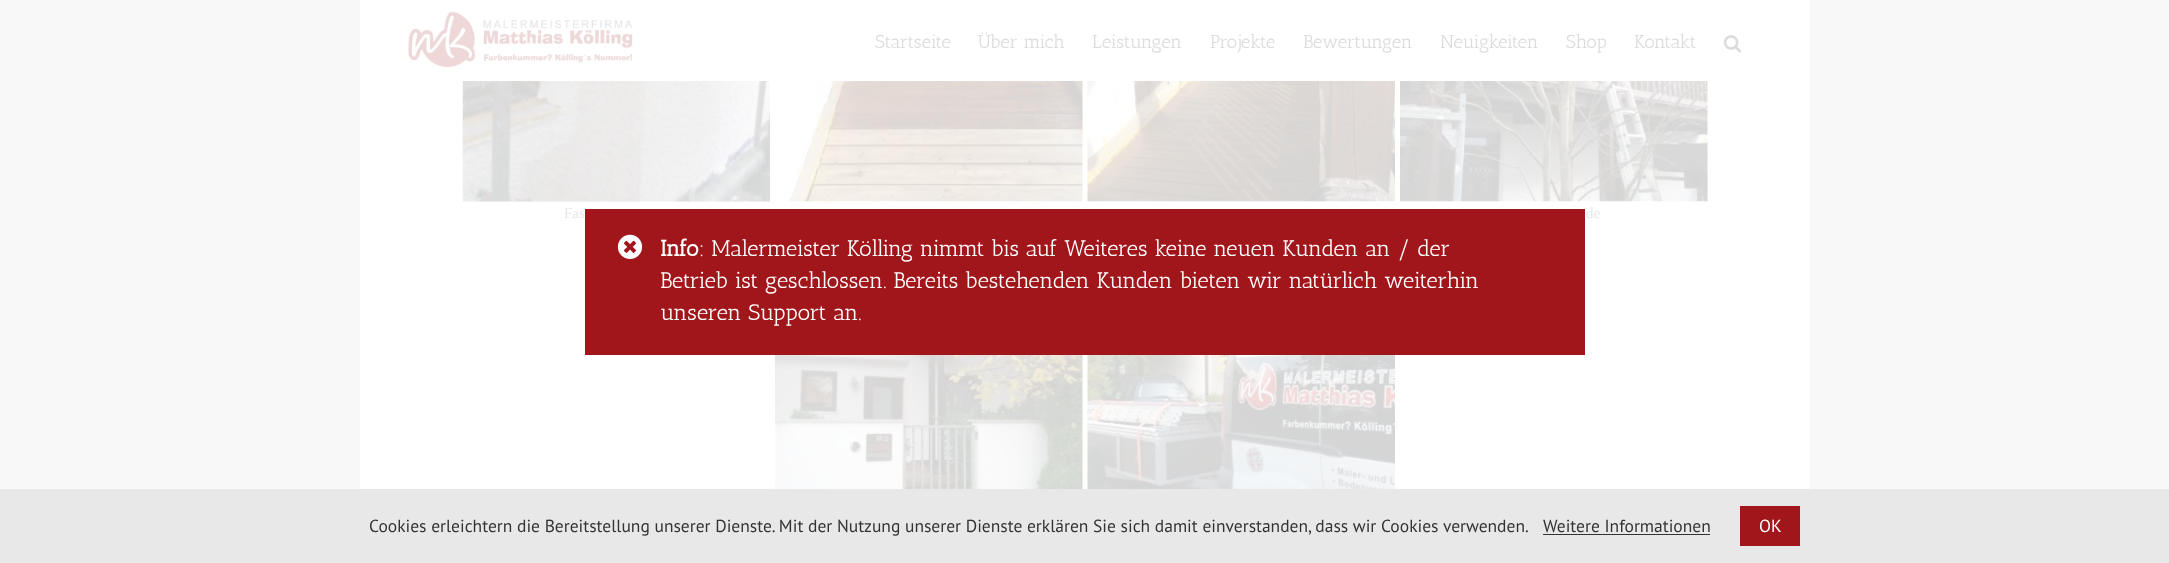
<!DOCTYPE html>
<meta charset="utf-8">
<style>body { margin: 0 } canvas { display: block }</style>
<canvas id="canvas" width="2169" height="563"></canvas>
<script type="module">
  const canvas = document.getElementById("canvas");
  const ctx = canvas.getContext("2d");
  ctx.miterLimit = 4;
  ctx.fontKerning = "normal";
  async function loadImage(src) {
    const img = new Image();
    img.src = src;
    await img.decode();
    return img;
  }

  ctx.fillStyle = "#f8f8f8";
  ctx.fillRect(0, 0, 2169, 563);
  ctx.fillStyle = "#ffffff";
  ctx.fillRect(360, 0, 1450, 489);
  ctx.drawImage(await loadImage("img1.png"), 408, 6, 231, 66);
  ctx.font = "18.75px Antic Slab";
  ctx.fillStyle = "#dcdcdc";
  ctx.fillText("Startseite", 875, 48);
  ctx.fillText("Über mich", 978, 48);
  ctx.fillText("Leistungen", 1092, 48);
  ctx.fillText("Projekte", 1210, 48);
  ctx.fillText("Bewertungen", 1303, 48);
  ctx.fillText("Neuigkeiten", 1440, 48);
  ctx.fillText("Shop", 1566, 48);
  ctx.fillText("Kontakt", 1634, 48);
  ctx.drawImage(await loadImage("img2.png"), 1723, 35, 19, 18);
  ctx.drawImage(await loadImage("img3.png"), 775, 81, 308, 121);
  ctx.drawImage(await loadImage("img4.png"), 1087, 81, 308, 121);
  ctx.drawImage(await loadImage("img5.png"), 462, 81, 308, 121);
  ctx.font = "15px Liberation Serif";
  ctx.fillStyle = "#e7e7e7";
  ctx.fillText("Fas", 564, 218);
  ctx.drawImage(await loadImage("img6.png"), 1400, 81, 308, 121);
  ctx.fillText("de", 1586, 218);
  ctx.drawImage(await loadImage("img7.png"), 775, 355, 308, 134);
  ctx.drawImage(await loadImage("img8.png"), 1087, 355, 308, 134);
  ctx.fillStyle = "#a1161b";
  ctx.fillRect(585, 209, 1000, 146);
  ctx.drawImage(await loadImage("img9.png"), 617, 234, 26, 25);
  ctx.font = "bold 22.5px Antic Slab";
  ctx.fillStyle = "#ffffff";
  ctx.fillText("Info", 660, 256);
  ctx.font = "22.5px Antic Slab";
  ctx.fillText(": Malermeister Kölling nimmt bis auf Weiteres keine neuen Kunden an / der", 699, 256);
  ctx.fillText("Betrieb ist geschlossen. Bereits bestehenden Kunden bieten wir natürlich weiterhin", 660, 288);
  ctx.fillText("unseren Support an.", 660, 320);
  ctx.fillStyle = "#e8e8e8";
  ctx.fillRect(0, 489, 2169, 74);
  ctx.font = "17.5px PT Sans";
  ctx.fillStyle = "#333333";
  ctx.fillText("Cookies erleichtern die Bereitstellung unserer Dienste. Mit der Nutzung unserer Dienste erklären Sie sich damit einverstanden, dass wir Cookies verwenden.", 369, 532);
  ctx.fillText("Weitere Informationen", 1543, 532);
  ctx.fillRect(1543, 534, 167, 1);
  ctx.fillStyle = "#a1161b";
  ctx.fillRect(1740, 506, 60, 40);
  ctx.fillStyle = "#ffffff";
  ctx.fillText("OK", 1759, 532);
</script>
